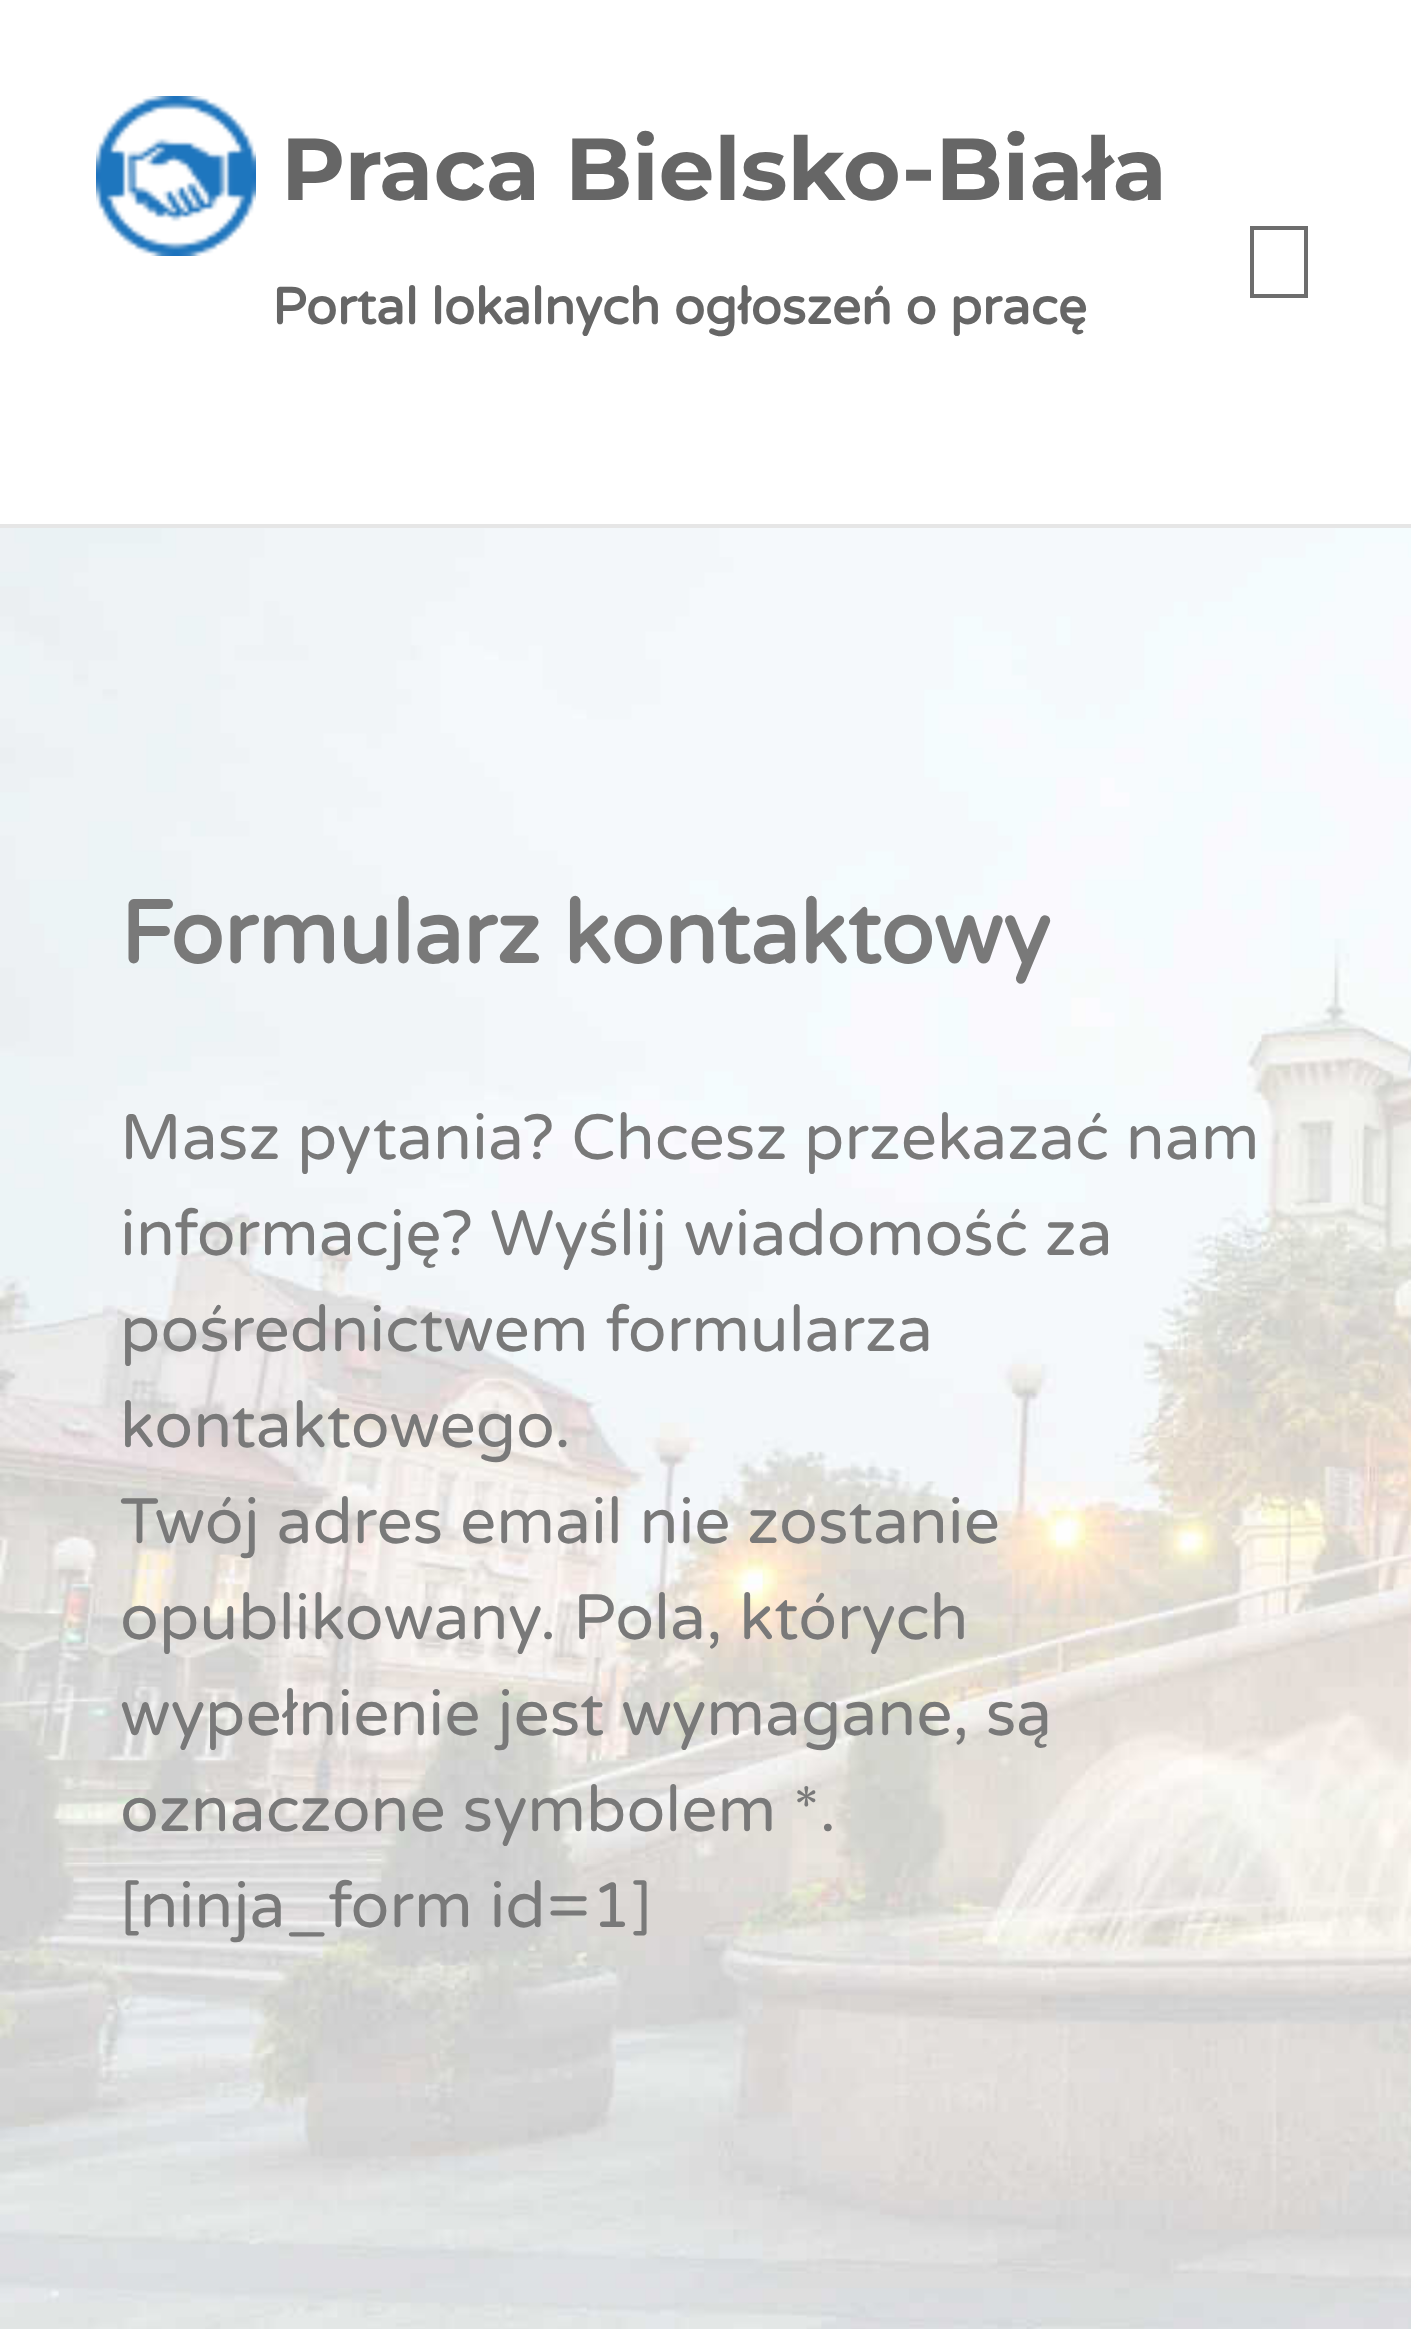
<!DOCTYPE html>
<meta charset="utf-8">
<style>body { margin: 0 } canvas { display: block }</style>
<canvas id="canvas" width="1411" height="2329"></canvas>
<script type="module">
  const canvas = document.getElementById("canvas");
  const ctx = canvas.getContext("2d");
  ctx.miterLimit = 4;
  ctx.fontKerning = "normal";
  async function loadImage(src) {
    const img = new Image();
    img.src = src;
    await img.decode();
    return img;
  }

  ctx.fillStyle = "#ffffff";
  ctx.fillRect(0, 0, 1411, 2329);
  ctx.drawImage(await loadImage("img1.png"), 0, 528, 1411, 1801);
  ctx.fillStyle = "#e6e6e6";
  ctx.fillRect(0, 524, 1411, 4);
  ctx.drawImage(await loadImage("img2.png"), 96, 96, 160, 160);
  ctx.font = "bold 88px Montserrat";
  ctx.fillStyle = "#666666";
  ctx.fillText("Praca Bielsko-Biała", 281, 200);
  ctx.font = "bold 51.25px Varela Round";
  ctx.fillText("Portal lokalnych ogłoszeń o pracę", 272, 324);
  ctx.fillStyle = "#6d6d6d";
  ctx.beginPath();
  ctx.moveTo(1250, 226);
  ctx.lineTo(1308, 226);
  ctx.lineTo(1308, 298);
  ctx.lineTo(1250, 298);
  ctx.closePath();
  ctx.moveTo(1254, 230);
  ctx.lineTo(1254, 294);
  ctx.lineTo(1304, 294);
  ctx.lineTo(1304, 230);
  ctx.closePath();
  ctx.fill();
  ctx.font = "bold 88px Varela Round";
  ctx.fillStyle = "#797979";
  ctx.fillText("Formularz kontaktowy", 120, 963);
  ctx.font = "64px Varela Round";
  ctx.fillText("Masz pytania? Chcesz przekazać nam", 120, 1159);
  ctx.fillText("informację? Wyślij wiadomość za", 120, 1255);
  ctx.fillText("pośrednictwem formularza", 120, 1351);
  ctx.fillText("kontaktowego.", 120, 1447);
  ctx.fillText("Twój adres email nie zostanie", 120, 1543);
  ctx.fillText("opublikowany. Pola, których", 120, 1639);
  ctx.fillText("wypełnienie jest wymagane, są", 120, 1735);
  ctx.fillText("oznaczone symbolem *.", 120, 1831);
  ctx.fillText("[ninja_form id=1]", 120, 1927);
</script>
